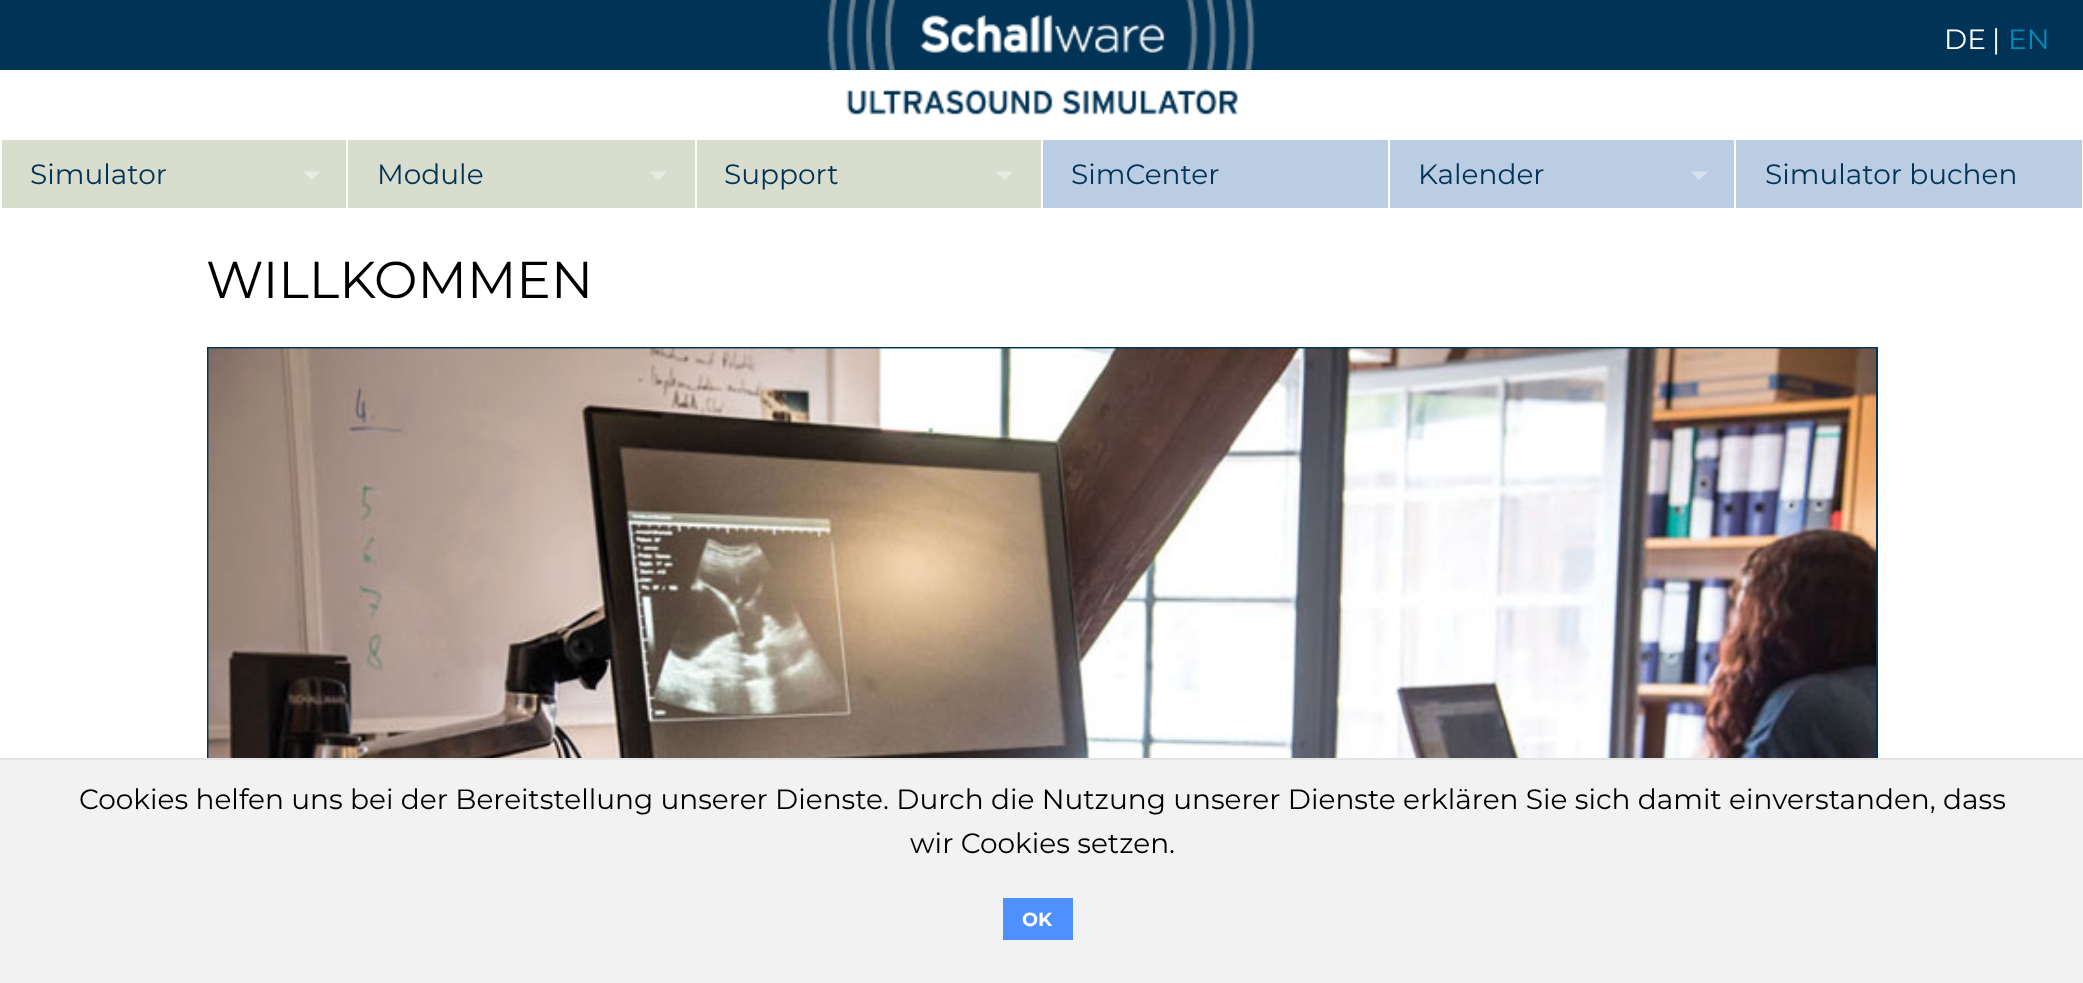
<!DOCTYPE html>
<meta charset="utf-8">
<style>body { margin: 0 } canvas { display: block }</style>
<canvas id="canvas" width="2083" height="983"></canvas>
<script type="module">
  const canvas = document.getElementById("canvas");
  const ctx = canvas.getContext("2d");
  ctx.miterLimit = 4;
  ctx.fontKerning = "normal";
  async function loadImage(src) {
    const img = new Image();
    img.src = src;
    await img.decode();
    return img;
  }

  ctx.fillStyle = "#ffffff";
  ctx.fillRect(0, 0, 2083, 983);
  ctx.fillStyle = "#003355";
  ctx.fillRect(0, 0, 2083, 70);
  ctx.drawImage(await loadImage("img1.png"), 827, 0, 428, 115);
  ctx.font = "28px Montserrat";
  ctx.fillStyle = "#ffffff";
  ctx.fillText("DE", 1944, 49);
  ctx.fillText("|", 1992, 49);
  ctx.fillStyle = "#008cba";
  ctx.fillText("EN", 2008, 49);
  ctx.fillStyle = "#d9ddce";
  ctx.fillRect(2, 140, 1039, 68);
  ctx.save();
  ctx.beginPath();
  ctx.rect(2, 140, 346, 70);
  ctx.clip();
  ctx.fillStyle = "#ffffff";
  ctx.beginPath();
  ctx.moveTo(-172, -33);
  ctx.lineTo(522, -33);
  ctx.lineTo(522, 383);
  ctx.lineTo(-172, 383);
  ctx.closePath();
  ctx.moveTo(0, 138);
  ctx.lineTo(346, 138);
  ctx.lineTo(346, 208);
  ctx.lineTo(0, 208);
  ctx.closePath();
  ctx.fill("evenodd");
  ctx.restore();
  ctx.fillStyle = "#003355";
  ctx.fillText("Simulator", 30, 184);
  ctx.fillStyle = "#e8ebe2";
  ctx.beginPath();
  ctx.moveTo(303, 171.5);
  ctx.lineTo(320, 171.5);
  ctx.lineTo(311.5, 180);
  ctx.closePath();
  ctx.fill();
  ctx.save();
  ctx.beginPath();
  ctx.rect(348, 140, 349, 70);
  ctx.clip();
  ctx.fillStyle = "#ffffff";
  ctx.beginPath();
  ctx.moveTo(175, -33);
  ctx.lineTo(870, -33);
  ctx.lineTo(870, 383);
  ctx.lineTo(175, 383);
  ctx.closePath();
  ctx.moveTo(346, 138);
  ctx.lineTo(695, 138);
  ctx.lineTo(695, 208);
  ctx.lineTo(346, 208);
  ctx.closePath();
  ctx.fill("evenodd");
  ctx.restore();
  ctx.fillStyle = "#003355";
  ctx.fillText("Module", 377, 184);
  ctx.fillStyle = "#e8ebe2";
  ctx.beginPath();
  ctx.moveTo(649, 171.5);
  ctx.lineTo(667, 171.5);
  ctx.lineTo(658, 180);
  ctx.closePath();
  ctx.fill();
  ctx.fillStyle = "#003355";
  ctx.fillText("Support", 724, 184);
  ctx.fillStyle = "#e8ebe2";
  ctx.beginPath();
  ctx.moveTo(996, 171.5);
  ctx.lineTo(1013, 171.5);
  ctx.lineTo(1004.5, 180);
  ctx.closePath();
  ctx.fill();
  ctx.fillStyle = "#bbcde3";
  ctx.fillRect(1043, 140, 345, 68);
  ctx.fillStyle = "#003355";
  ctx.fillText("SimCenter", 1071, 184);
  ctx.fillStyle = "#bbcde3";
  ctx.fillRect(1390, 140, 344, 68);
  ctx.fillStyle = "#003355";
  ctx.fillText("Kalender", 1418, 184);
  ctx.fillStyle = "#d6e1ee";
  ctx.beginPath();
  ctx.moveTo(1690.5, 171.5);
  ctx.lineTo(1708, 171.5);
  ctx.lineTo(1699, 180);
  ctx.closePath();
  ctx.fill();
  ctx.fillStyle = "#bbcde3";
  ctx.fillRect(1736, 140, 346, 68);
  ctx.fillStyle = "#003355";
  ctx.fillText("Simulator buchen", 1765, 184);
  ctx.font = "51.75px Montserrat";
  ctx.fillStyle = "#000000";
  ctx.fillText("WILLKOMMEN", 206, 298);
  ctx.strokeStyle = "#003355";
  ctx.lineWidth = 2;
  ctx.strokeRect(208, 348, 1669, 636);
  ctx.drawImage(await loadImage("img2.png"), 208, 348, 1668, 410);
  ctx.fillStyle = "#f2f2f2";
  ctx.fillRect(0, 760, 2083, 223);
  ctx.fillStyle = "#e4e4e4";
  ctx.fillRect(0, 758, 2083, 2);
  ctx.font = "28px Montserrat";
  ctx.fillStyle = "#000000";
  ctx.fillText("Cookies helfen uns bei der Bereitstellung unserer Dienste. Durch die Nutzung unserer Dienste erklären Sie sich damit einverstanden, dass", 79, 809);
  ctx.fillText("wir Cookies setzen.", 910, 853);
  ctx.fillStyle = "#4d90fe";
  ctx.fillRect(1003, 898, 70, 42);
  ctx.font = "bold 19px Montserrat";
  ctx.fillStyle = "#ffffff";
  ctx.fillText("OK", 1022, 926);
</script>
